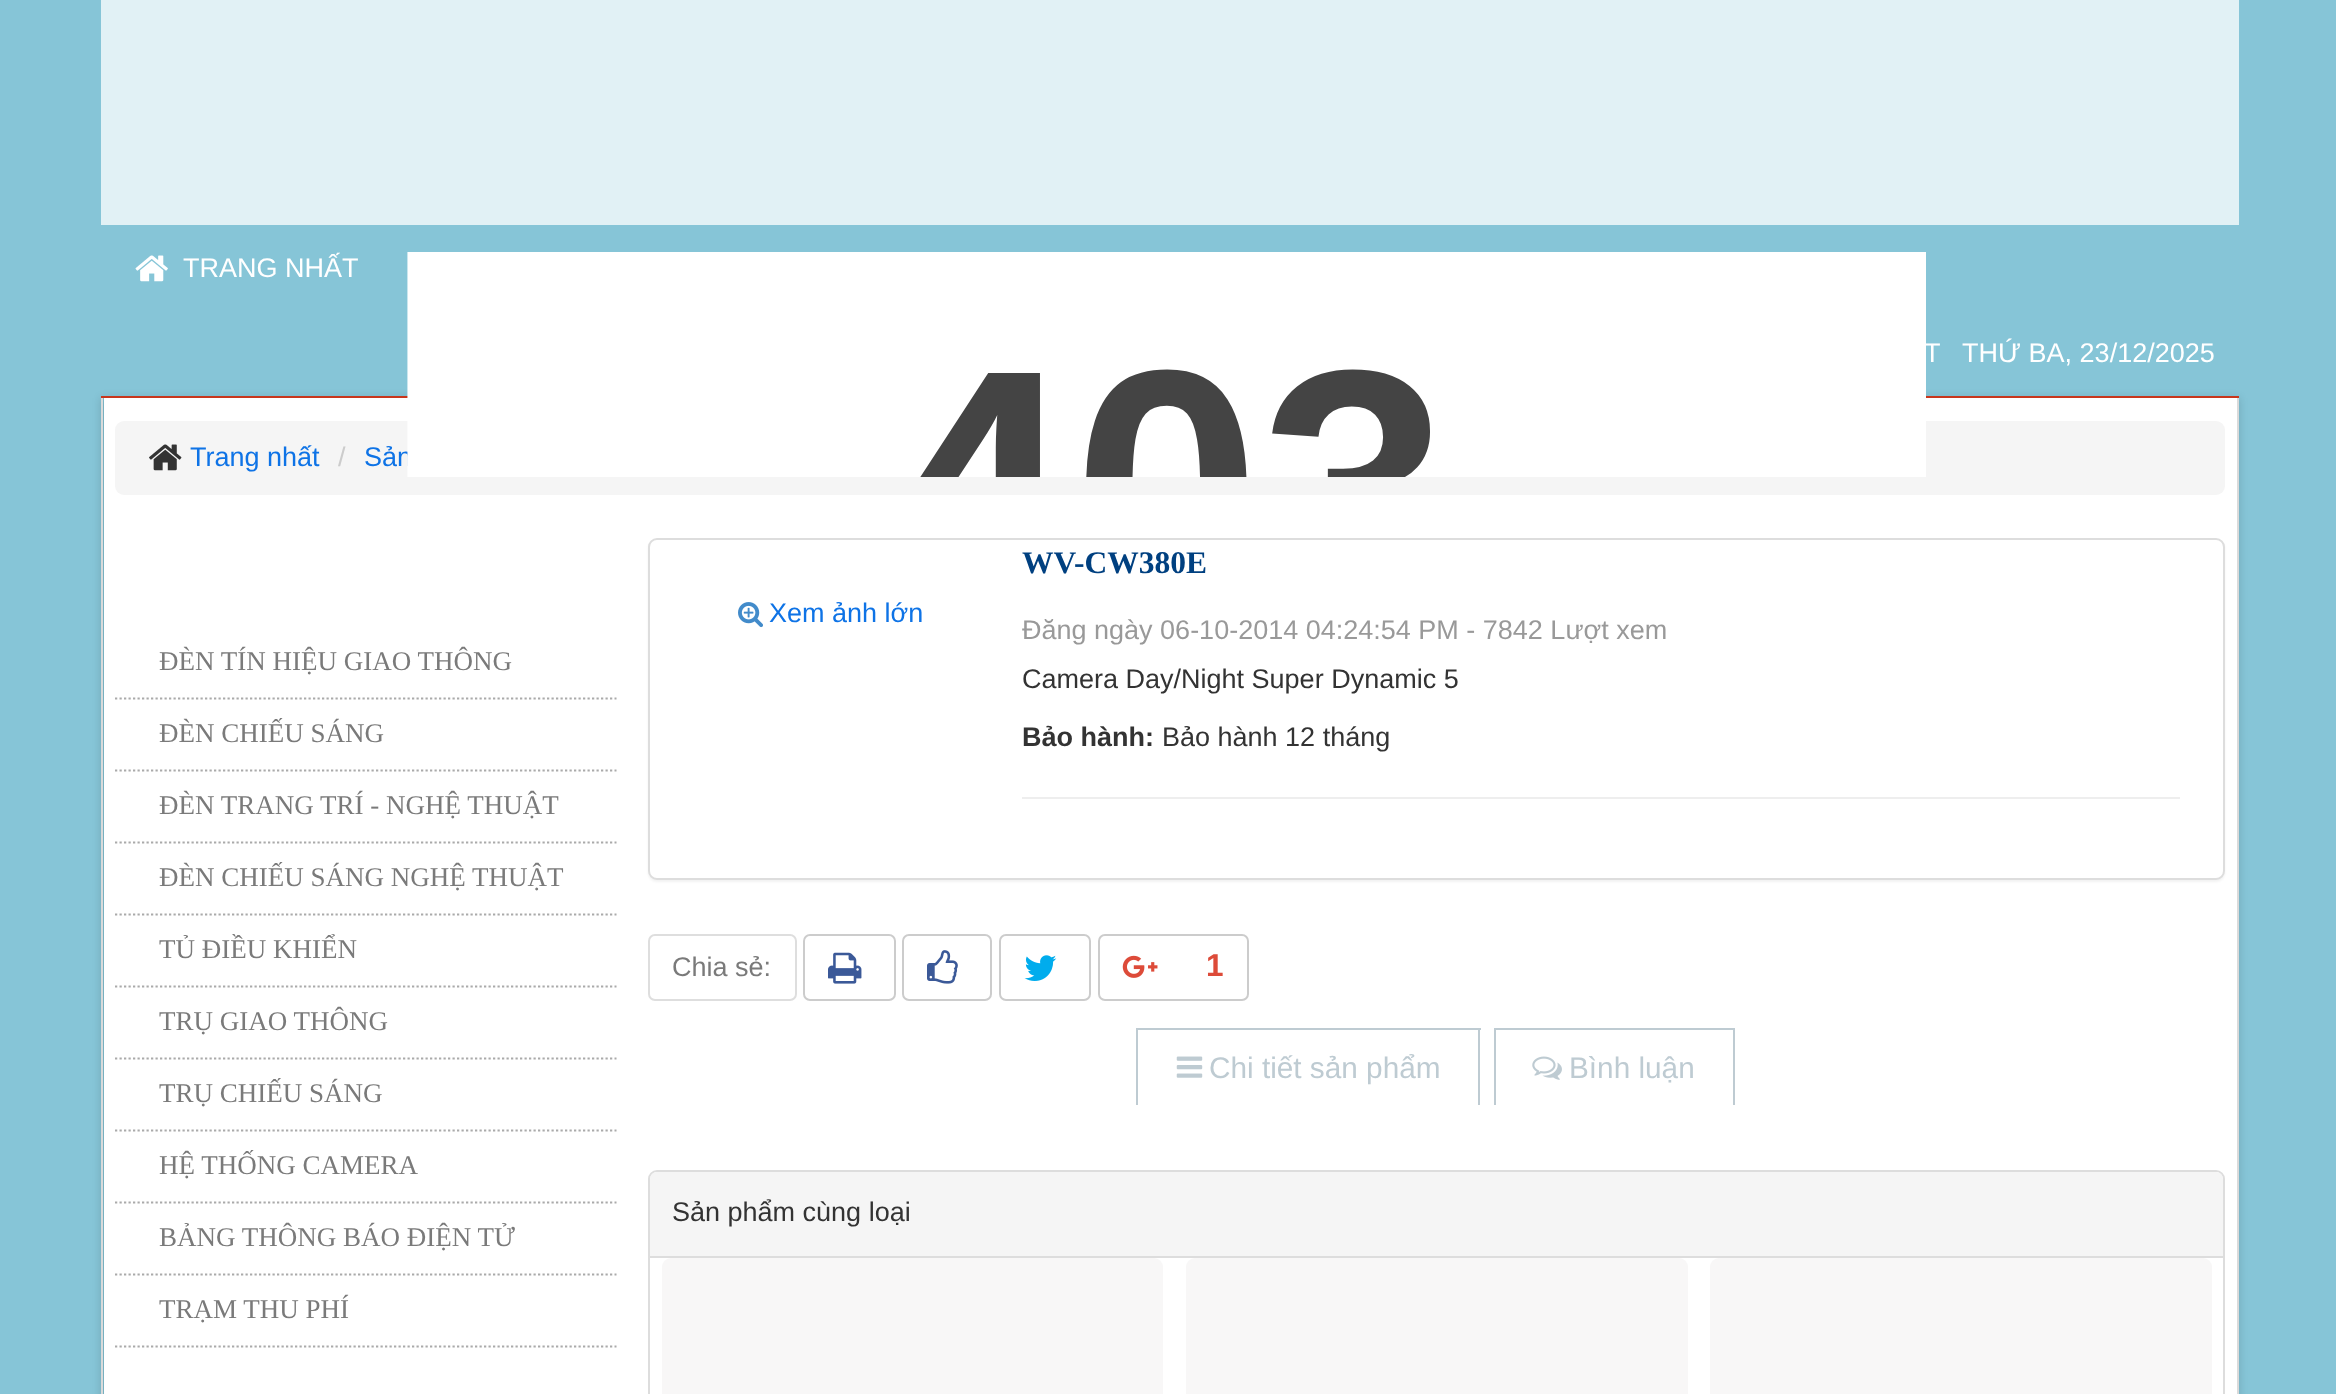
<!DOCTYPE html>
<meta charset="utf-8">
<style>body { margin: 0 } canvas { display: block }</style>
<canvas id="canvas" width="2336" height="1394"></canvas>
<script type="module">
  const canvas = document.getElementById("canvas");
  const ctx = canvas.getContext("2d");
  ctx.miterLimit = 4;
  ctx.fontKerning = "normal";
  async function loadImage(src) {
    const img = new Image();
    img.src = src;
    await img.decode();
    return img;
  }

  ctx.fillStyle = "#86c5d7";
  ctx.fillRect(0, 0, 2336, 1394);
  ctx.fillStyle = "#e1f1f5";
  ctx.fillRect(101, 0, 2138, 225);
  ctx.fillStyle = "rgba(0, 0, 0, 0.15)";
  ctx.filter = "blur(4.5px)";
  ctx.beginPath();
  ctx.rect(101, 398, 2138, 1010);
  ctx.fill();
  ctx.filter = "none";
  ctx.fillStyle = "#c8361c";
  ctx.fillRect(101, 396, 2138, 2);
  ctx.font = "27px Liberation Sans";
  ctx.fillStyle = "#ffffff";
  ctx.fillText("T   THỨ BA, 23/12/2025", 1924, 362);
  ctx.fillRect(104, 398, 2133, 996);
  ctx.fillStyle = "#f5f5f5";
  ctx.beginPath();
  ctx.roundRect(115, 421, 2110, 74, 9);
  ctx.fill();
  ctx.fillStyle = "#0e73e6";
  ctx.fillText("Sản", 364, 466);
  ctx.drawImage(await loadImage("img1.png"), 407, 252, 1519, 225);
  ctx.drawImage(await loadImage("img2.png"), 135, 255, 33, 27);
  ctx.fillStyle = "#ffffff";
  ctx.fillText("TRANG NHẤT", 183, 277);
  ctx.fillStyle = "#dadada";
  ctx.fillRect(2237, 398, 2, 996);
  ctx.fillRect(101, 398, 2, 996);
  ctx.drawImage(await loadImage("img3.png"), 149, 444, 33, 27);
  ctx.fillStyle = "#0e73e6";
  ctx.fillText("Trang nhất", 190, 466);
  ctx.fillStyle = "#cccccc";
  ctx.fillText("/", 338, 466);
  ctx.beginPath();
  ctx.moveTo(115, 698.5);
  ctx.lineTo(616.5, 698.5);
  ctx.strokeStyle = "#aaaaaa";
  ctx.lineWidth = 2.2;
  ctx.setLineDash([2.25, 2.25]);
  ctx.stroke();
  ctx.font = "27px Liberation Serif";
  ctx.fillStyle = "#7a7a7a";
  ctx.fillText("ĐÈN TÍN HIỆU GIAO THÔNG", 159, 670);
  ctx.beginPath();
  ctx.moveTo(115, 770.5);
  ctx.lineTo(616.5, 770.5);
  ctx.stroke();
  ctx.fillText("ĐÈN CHIẾU SÁNG", 159, 742);
  ctx.beginPath();
  ctx.moveTo(115, 842.5);
  ctx.lineTo(616.5, 842.5);
  ctx.stroke();
  ctx.fillText("ĐÈN TRANG TRÍ - NGHỆ THUẬT", 159, 814);
  ctx.beginPath();
  ctx.moveTo(115, 914.5);
  ctx.lineTo(616.5, 914.5);
  ctx.stroke();
  ctx.fillText("ĐÈN CHIẾU SÁNG NGHỆ THUẬT", 159, 886);
  ctx.beginPath();
  ctx.moveTo(115, 986.5);
  ctx.lineTo(616.5, 986.5);
  ctx.stroke();
  ctx.fillText("TỦ ĐIỀU KHIỂN", 159, 958);
  ctx.beginPath();
  ctx.moveTo(115, 1058.5);
  ctx.lineTo(616.5, 1058.5);
  ctx.stroke();
  ctx.fillText("TRỤ GIAO THÔNG", 159, 1030);
  ctx.beginPath();
  ctx.moveTo(115, 1130.5);
  ctx.lineTo(616.5, 1130.5);
  ctx.stroke();
  ctx.fillText("TRỤ CHIẾU SÁNG", 159, 1102);
  ctx.beginPath();
  ctx.moveTo(115, 1202.5);
  ctx.lineTo(616.5, 1202.5);
  ctx.stroke();
  ctx.fillText("HỆ THỐNG CAMERA", 159, 1174);
  ctx.beginPath();
  ctx.moveTo(115, 1274.5);
  ctx.lineTo(616.5, 1274.5);
  ctx.stroke();
  ctx.fillText("BẢNG THÔNG BÁO ĐIỆN TỬ", 159, 1246);
  ctx.beginPath();
  ctx.moveTo(115, 1346.5);
  ctx.lineTo(616.5, 1346.5);
  ctx.stroke();
  ctx.fillText("TRẠM THU PHÍ", 159, 1318);
  ctx.fillStyle = "rgba(0, 0, 0, 0.05)";
  ctx.filter = "blur(1px)";
  ctx.beginPath();
  ctx.roundRect(648, 540, 1577, 342, 9);
  ctx.fill();
  ctx.filter = "none";
  ctx.fillStyle = "#ffffff";
  ctx.beginPath();
  ctx.roundRect(649, 539, 1575, 340, 8);
  ctx.fill();
  ctx.strokeStyle = "#dddddd";
  ctx.lineWidth = 2;
  ctx.setLineDash([]);
  ctx.stroke();
  ctx.drawImage(await loadImage("img4.png"), 738, 602, 25, 26);
  ctx.font = "27px Liberation Sans";
  ctx.fillStyle = "#0e73e6";
  ctx.fillText("Xem ảnh lớn", 769, 622);
  ctx.font = "bold 31.5px Liberation Serif";
  ctx.fillStyle = "#004080";
  ctx.fillText("WV-CW380E", 1022, 573);
  ctx.font = "27px Liberation Sans";
  ctx.fillStyle = "#999999";
  ctx.fillText("Đăng ngày 06-10-2014 04:24:54 PM - 7842 Lượt xem", 1022, 639);
  ctx.fillStyle = "#333333";
  ctx.fillText("Camera Day/Night Super Dynamic 5", 1022, 688);
  ctx.font = "bold 27px Liberation Sans";
  ctx.fillText("Bảo hành:", 1022, 746);
  ctx.font = "27px Liberation Sans";
  ctx.fillText("Bảo hành 12 tháng", 1162, 746);
  ctx.fillStyle = "#eeeeee";
  ctx.fillRect(1022, 797, 1158, 2);
  ctx.beginPath();
  ctx.roundRect(649, 935, 147, 65, 6);
  ctx.strokeStyle = "#dedede";
  ctx.stroke();
  ctx.fillStyle = "#7a7a7a";
  ctx.fillText("Chia sẻ:", 672, 976);
  ctx.beginPath();
  ctx.roundRect(804, 935, 91, 65, 6);
  ctx.strokeStyle = "#cccccc";
  ctx.stroke();
  ctx.drawImage(await loadImage("img5.png"), 828, 952, 34, 32);
  ctx.beginPath();
  ctx.roundRect(903, 935, 88, 65, 6);
  ctx.stroke();
  ctx.drawImage(await loadImage("img6.png"), 927, 950, 31, 34);
  ctx.beginPath();
  ctx.roundRect(1000, 935, 90, 65, 6);
  ctx.stroke();
  ctx.drawImage(await loadImage("img7.png"), 1024, 955, 33, 26);
  ctx.beginPath();
  ctx.roundRect(1099, 935, 149, 65, 6);
  ctx.stroke();
  ctx.drawImage(await loadImage("img8.png"), 1122, 955, 36, 23);
  ctx.font = "bold 31.5px Liberation Sans";
  ctx.fillStyle = "#dd4b39";
  ctx.fillText("1", 1206, 976);
  ctx.fillStyle = "#becbd2";
  ctx.fillRect(1136, 1028, 345, 2);
  ctx.fillRect(1478, 1028, 2, 77);
  ctx.fillRect(1136, 1028, 2, 77);
  ctx.drawImage(await loadImage("img9.png"), 1176, 1056, 27, 22);
  ctx.font = "29.75px Liberation Sans";
  ctx.fillText("Chi tiết sản phẩm", 1209, 1078);
  ctx.fillRect(1494, 1028, 241, 2);
  ctx.fillRect(1733, 1028, 2, 77);
  ctx.fillRect(1494, 1028, 2, 77);
  ctx.drawImage(await loadImage("img10.png"), 1532, 1056, 30, 24);
  ctx.fillText("Bình luận", 1569, 1078);
  ctx.beginPath();
  ctx.roundRect(649, 1171, 1575, 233, 8);
  ctx.strokeStyle = "#dddddd";
  ctx.stroke();
  ctx.fillStyle = "#f5f5f5";
  ctx.beginPath();
  ctx.roundRect(650, 1172, 1573, 86, [7, 7, 0, 0]);
  ctx.fill();
  ctx.fillStyle = "#dddddd";
  ctx.fillRect(650, 1256, 1573, 2);
  ctx.font = "27px Liberation Sans";
  ctx.fillStyle = "#333333";
  ctx.fillText("Sản phẩm cùng loại", 672, 1221);
  ctx.fillStyle = "#f8f7f7";
  ctx.beginPath();
  ctx.roundRect(662, 1258, 501, 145, 9);
  ctx.fill();
  ctx.beginPath();
  ctx.roundRect(1186, 1258, 502, 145, 9);
  ctx.fill();
  ctx.beginPath();
  ctx.roundRect(1710, 1258, 502, 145, 9);
  ctx.fill();
</script>
